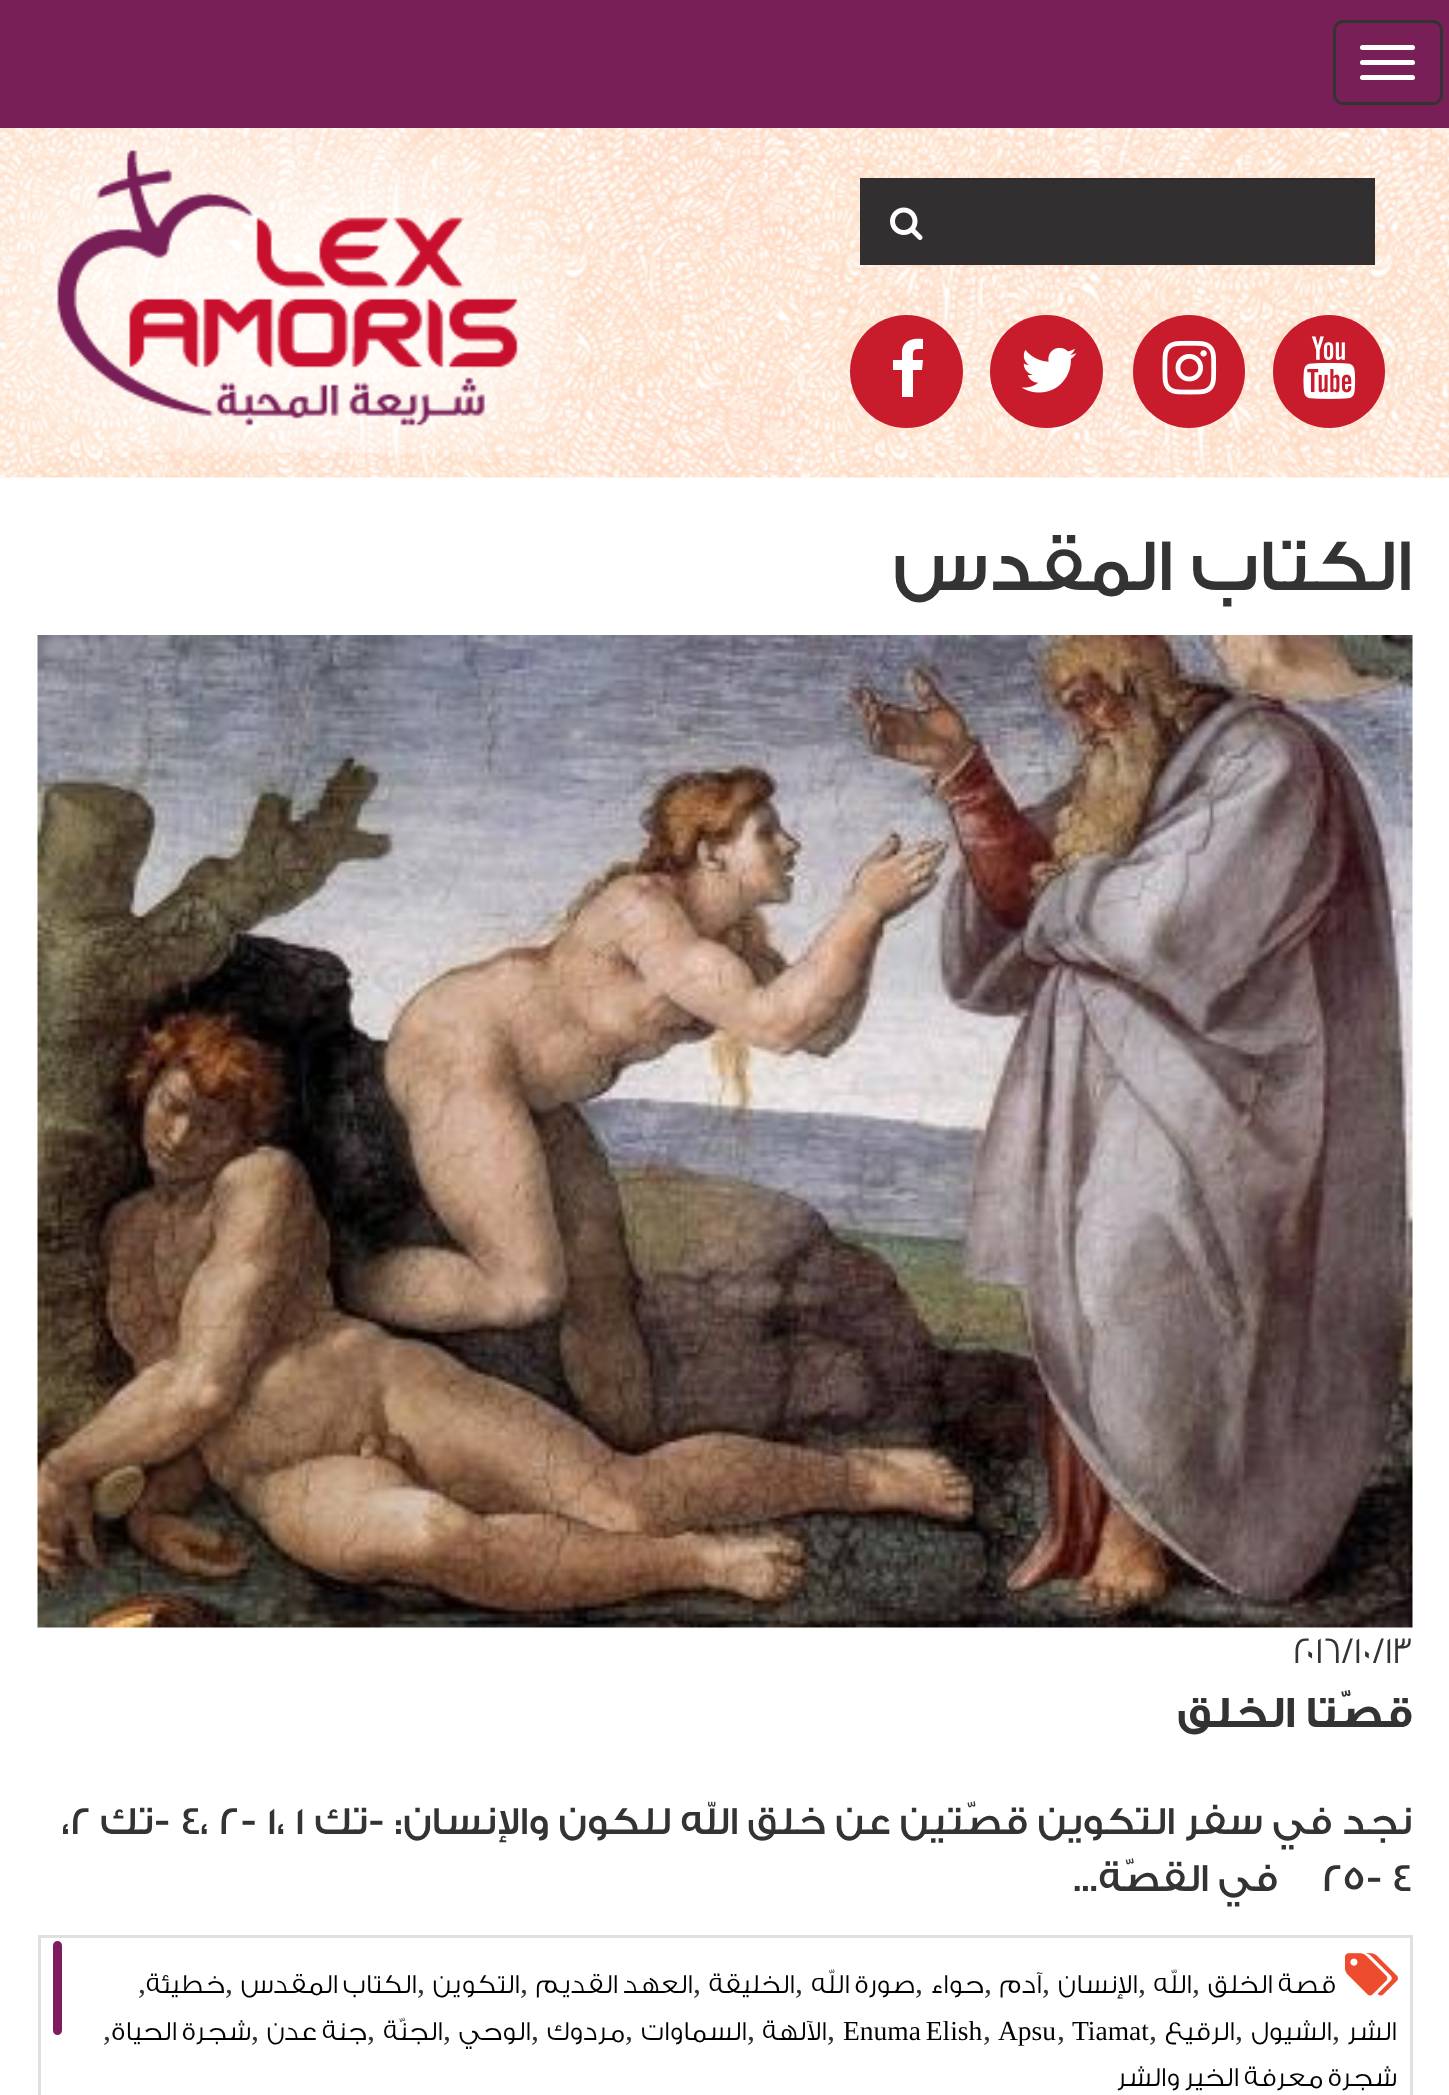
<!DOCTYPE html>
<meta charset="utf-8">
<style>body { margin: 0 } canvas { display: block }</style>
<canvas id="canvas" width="1449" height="2095"></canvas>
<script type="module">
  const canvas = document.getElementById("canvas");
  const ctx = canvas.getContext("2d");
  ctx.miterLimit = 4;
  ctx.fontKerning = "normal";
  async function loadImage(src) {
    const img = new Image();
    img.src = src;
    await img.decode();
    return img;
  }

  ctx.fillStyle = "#ffffff";
  ctx.fillRect(0, 0, 1449, 2095);
  ctx.fillStyle = "#791f58";
  ctx.fillRect(0, 0, 1449, 128);
  ctx.beginPath();
  ctx.roundRect(1334.5, 21.5, 107, 82, 8.5);
  ctx.strokeStyle = "#333333";
  ctx.lineWidth = 3;
  ctx.stroke();
  ctx.fillStyle = "#ffffff";
  ctx.beginPath();
  ctx.roundRect(1360, 45, 55, 5, 2.5);
  ctx.fill();
  ctx.beginPath();
  ctx.roundRect(1360, 60, 55, 5, 2.5);
  ctx.fill();
  ctx.beginPath();
  ctx.roundRect(1360, 75, 55, 5, 2.5);
  ctx.fill();
  ctx.drawImage(await loadImage("img1.png"), 0, 128, 1449, 350);
  ctx.fillStyle = "#322f31";
  ctx.fillRect(860, 178, 515, 87);
  ctx.fillStyle = "#2e2b2d";
  ctx.beginPath();
  ctx.moveTo(935, 180);
  ctx.lineTo(1350, 180);
  ctx.bezierCurveTo(1356, 180, 1360, 184, 1360, 190);
  ctx.bezierCurveTo(1360, 185, 1358, 179, 1352, 178);
  ctx.lineTo(935, 178);
  ctx.closePath();
  ctx.fill();
  ctx.drawImage(await loadImage("img2.png"), 890, 207, 33, 33);
  ctx.fillStyle = "#c81c2d";
  ctx.beginPath();
  ctx.roundRect(1273, 315, 112, 113, 56);
  ctx.fill();
  ctx.drawImage(await loadImage("img3.png"), 1303, 336, 53, 63);
  ctx.beginPath();
  ctx.roundRect(1133, 315, 112, 113, 56);
  ctx.fill();
  ctx.drawImage(await loadImage("img4.png"), 1162, 340, 55, 55);
  ctx.beginPath();
  ctx.arc(1046.5, 371.5, 56.5, 0, Math.PI * 2);
  ctx.fill();
  ctx.drawImage(await loadImage("img5.png"), 1021, 347, 56, 46);
  ctx.beginPath();
  ctx.arc(906.5, 371.5, 56.5, 0, Math.PI * 2);
  ctx.fill();
  ctx.fillStyle = "#ffffff";
  ctx.beginPath();
  ctx.moveTo(923, 339);
  ctx.lineTo(923, 349);
  ctx.bezierCurveTo(912, 349, 913, 349, 913, 360);
  ctx.lineTo(923, 360);
  ctx.lineTo(922, 370);
  ctx.lineTo(913, 370);
  ctx.lineTo(913, 397);
  ctx.lineTo(902, 397);
  ctx.lineTo(902, 370);
  ctx.lineTo(893, 370);
  ctx.lineTo(893, 360);
  ctx.lineTo(902, 360);
  ctx.lineTo(902, 350);
  ctx.bezierCurveTo(904, 339, 915, 338, 923, 339);
  ctx.closePath();
  ctx.fill();
  ctx.drawImage(await loadImage("img6.png"), 0, 128, 570, 325);
  ctx.direction = "rtl";
  ctx.font = "500 75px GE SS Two";
  ctx.fillStyle = "#333333";
  ctx.fillText("الكتاب المقدس", 1412, 590);
  ctx.drawImage(await loadImage("img7.png"), 37, 635, 1376, 993);
  ctx.direction = "ltr";
  ctx.font = "300 38px GE SS Two";
  ctx.fillText("١٣", 1385, 1663);
  ctx.direction = "rtl";
  ctx.fillText("/", 1385, 1663);
  ctx.direction = "ltr";
  ctx.fillText("١٠", 1354, 1663);
  ctx.direction = "rtl";
  ctx.fillText("/", 1354, 1663);
  ctx.direction = "ltr";
  ctx.fillText("٢٠١٦", 1293, 1663);
  ctx.direction = "rtl";
  ctx.font = "bold 45px GE SS Two";
  ctx.fillText("قصّتا الخلق", 1413, 1727);
  ctx.font = "500 40px GE SS Two";
  ctx.fillText("نجد في سفر التكوين قصّتين عن خلق الله للكون والإنسان: -تك", 1412, 1834);
  ctx.direction = "ltr";
  ctx.fillText("4، 2- 1، 1", 181, 1834);
  ctx.direction = "rtl";
  ctx.fillText("-تك", 171, 1834);
  ctx.direction = "ltr";
  ctx.fillText("،2", 62, 1834);
  ctx.fillText("25- 4", 1322, 1891);
  ctx.direction = "rtl";
  ctx.fillText("في القصّة...", 1278, 1891);
  ctx.strokeStyle = "#e0e0e0";
  ctx.strokeRect(39.5, 1936.5, 1372, 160);
  ctx.drawImage(await loadImage("img8.png"), 1345, 1953, 53, 43);
  ctx.font = "300 27.5px GE SS Two";
  ctx.fillStyle = "#000000";
  ctx.fillText("قصة الخلق", 1336, 1993);
  ctx.direction = "ltr";
  ctx.font = "32px Liberation Serif";
  ctx.fillStyle = "#333333";
  ctx.fillText(",", 1192, 1993);
  ctx.direction = "rtl";
  ctx.font = "300 27.5px GE SS Two";
  ctx.fillStyle = "#000000";
  ctx.fillText("الله", 1192, 1993);
  ctx.direction = "ltr";
  ctx.font = "32px Liberation Serif";
  ctx.fillStyle = "#333333";
  ctx.fillText(",", 1138, 1993);
  ctx.direction = "rtl";
  ctx.font = "300 27.5px GE SS Two";
  ctx.fillStyle = "#000000";
  ctx.fillText("الإنسان", 1138, 1993);
  ctx.direction = "ltr";
  ctx.font = "32px Liberation Serif";
  ctx.fillStyle = "#333333";
  ctx.fillText(",", 1042, 1993);
  ctx.direction = "rtl";
  ctx.font = "300 27.5px GE SS Two";
  ctx.fillStyle = "#000000";
  ctx.fillText("آدم", 1042, 1993);
  ctx.direction = "ltr";
  ctx.font = "32px Liberation Serif";
  ctx.fillStyle = "#333333";
  ctx.fillText(",", 984, 1993);
  ctx.direction = "rtl";
  ctx.font = "300 27.5px GE SS Two";
  ctx.fillStyle = "#000000";
  ctx.fillText("حواء", 984, 1993);
  ctx.direction = "ltr";
  ctx.font = "32px Liberation Serif";
  ctx.fillStyle = "#333333";
  ctx.fillText(",", 915, 1993);
  ctx.direction = "rtl";
  ctx.font = "300 27.5px GE SS Two";
  ctx.fillStyle = "#000000";
  ctx.fillText("صورة الله", 915, 1993);
  ctx.direction = "ltr";
  ctx.font = "32px Liberation Serif";
  ctx.fillStyle = "#333333";
  ctx.fillText(",", 795, 1993);
  ctx.direction = "rtl";
  ctx.font = "300 27.5px GE SS Two";
  ctx.fillStyle = "#000000";
  ctx.fillText("الخليقة", 795, 1993);
  ctx.direction = "ltr";
  ctx.font = "32px Liberation Serif";
  ctx.fillStyle = "#333333";
  ctx.fillText(",", 693, 1993);
  ctx.direction = "rtl";
  ctx.font = "300 27.5px GE SS Two";
  ctx.fillStyle = "#000000";
  ctx.fillText("العهد القديم", 693, 1993);
  ctx.direction = "ltr";
  ctx.font = "32px Liberation Serif";
  ctx.fillStyle = "#333333";
  ctx.fillText(",", 520, 1993);
  ctx.direction = "rtl";
  ctx.font = "300 27.5px GE SS Two";
  ctx.fillStyle = "#000000";
  ctx.fillText("التكوين", 520, 1993);
  ctx.direction = "ltr";
  ctx.font = "32px Liberation Serif";
  ctx.fillStyle = "#333333";
  ctx.fillText(",", 417, 1993);
  ctx.direction = "rtl";
  ctx.font = "300 27.5px GE SS Two";
  ctx.fillStyle = "#000000";
  ctx.fillText("الكتاب المقدس", 417, 1993);
  ctx.direction = "ltr";
  ctx.font = "32px Liberation Serif";
  ctx.fillStyle = "#333333";
  ctx.fillText(",", 225, 1993);
  ctx.direction = "rtl";
  ctx.font = "300 27.5px GE SS Two";
  ctx.fillStyle = "#000000";
  ctx.fillText("خطيئة", 225, 1993);
  ctx.direction = "ltr";
  ctx.font = "32px Liberation Serif";
  ctx.fillStyle = "#333333";
  ctx.fillText(",", 138, 1993);
  ctx.direction = "rtl";
  ctx.font = "300 27.5px GE SS Two";
  ctx.fillStyle = "#000000";
  ctx.fillText("الشر", 1397, 2040);
  ctx.direction = "ltr";
  ctx.font = "32px Liberation Serif";
  ctx.fillStyle = "#333333";
  ctx.fillText(",", 1332, 2040);
  ctx.direction = "rtl";
  ctx.font = "300 27.5px GE SS Two";
  ctx.fillStyle = "#000000";
  ctx.fillText("الشيول", 1332, 2040);
  ctx.direction = "ltr";
  ctx.font = "32px Liberation Serif";
  ctx.fillStyle = "#333333";
  ctx.fillText(",", 1235, 2040);
  ctx.direction = "rtl";
  ctx.font = "300 27.5px GE SS Two";
  ctx.fillStyle = "#000000";
  ctx.fillText("الرقيع", 1235, 2040);
  ctx.direction = "ltr";
  ctx.font = "32px Liberation Serif";
  ctx.fillStyle = "#333333";
  ctx.fillText(",", 1149, 2040);
  ctx.font = "27.5px Liberation Serif";
  ctx.fillStyle = "#000000";
  ctx.fillText("Tiamat", 1072, 2040);
  ctx.font = "32px Liberation Serif";
  ctx.fillStyle = "#333333";
  ctx.fillText(",", 1057, 2040);
  ctx.font = "27.5px Liberation Serif";
  ctx.fillStyle = "#000000";
  ctx.fillText("Apsu", 998, 2040);
  ctx.font = "32px Liberation Serif";
  ctx.fillStyle = "#333333";
  ctx.fillText(",", 983, 2040);
  ctx.wordSpacing = "-2px";
  ctx.font = "27.5px Liberation Serif";
  ctx.fillStyle = "#000000";
  ctx.fillText("Enuma Elish", 843, 2040);
  ctx.wordSpacing = "0px";
  ctx.font = "32px Liberation Serif";
  ctx.fillStyle = "#333333";
  ctx.fillText(",", 827, 2040);
  ctx.direction = "rtl";
  ctx.font = "300 27.5px GE SS Two";
  ctx.fillStyle = "#000000";
  ctx.fillText("الآلهة", 827, 2040);
  ctx.direction = "ltr";
  ctx.font = "32px Liberation Serif";
  ctx.fillStyle = "#333333";
  ctx.fillText(",", 747, 2040);
  ctx.direction = "rtl";
  ctx.font = "300 27.5px GE SS Two";
  ctx.fillStyle = "#000000";
  ctx.fillText("السماوات", 747, 2040);
  ctx.direction = "ltr";
  ctx.font = "32px Liberation Serif";
  ctx.fillStyle = "#333333";
  ctx.fillText(",", 625, 2040);
  ctx.direction = "rtl";
  ctx.font = "300 27.5px GE SS Two";
  ctx.fillStyle = "#000000";
  ctx.fillText("مردوك", 625, 2040);
  ctx.direction = "ltr";
  ctx.font = "32px Liberation Serif";
  ctx.fillStyle = "#333333";
  ctx.fillText(",", 531, 2040);
  ctx.direction = "rtl";
  ctx.font = "300 27.5px GE SS Two";
  ctx.fillStyle = "#000000";
  ctx.fillText("الوحي", 531, 2040);
  ctx.direction = "ltr";
  ctx.font = "32px Liberation Serif";
  ctx.fillStyle = "#333333";
  ctx.fillText(",", 443, 2040);
  ctx.direction = "rtl";
  ctx.font = "300 27.5px GE SS Two";
  ctx.fillStyle = "#000000";
  ctx.fillText("الجنّة", 443, 2040);
  ctx.direction = "ltr";
  ctx.font = "32px Liberation Serif";
  ctx.fillStyle = "#333333";
  ctx.fillText(",", 367, 2040);
  ctx.direction = "rtl";
  ctx.font = "300 27.5px GE SS Two";
  ctx.fillStyle = "#000000";
  ctx.fillText("جنة عدن", 367, 2040);
  ctx.direction = "ltr";
  ctx.font = "32px Liberation Serif";
  ctx.fillStyle = "#333333";
  ctx.fillText(",", 251, 2040);
  ctx.direction = "rtl";
  ctx.font = "300 27.5px GE SS Two";
  ctx.fillStyle = "#000000";
  ctx.fillText("شجرة الحياة", 251, 2040);
  ctx.direction = "ltr";
  ctx.font = "32px Liberation Serif";
  ctx.fillStyle = "#333333";
  ctx.fillText(",", 103, 2040);
  ctx.direction = "rtl";
  ctx.font = "300 27.5px GE SS Two";
  ctx.fillStyle = "#000000";
  ctx.fillText("شجرة معرفة الخير والشر", 1397, 2086);
  ctx.fillStyle = "#7e1c5f";
  ctx.beginPath();
  ctx.roundRect(51.5, 1939.5, 12, 97, 6);
  ctx.fill();
  ctx.strokeStyle = "#ffffff";
  ctx.stroke();
</script>
